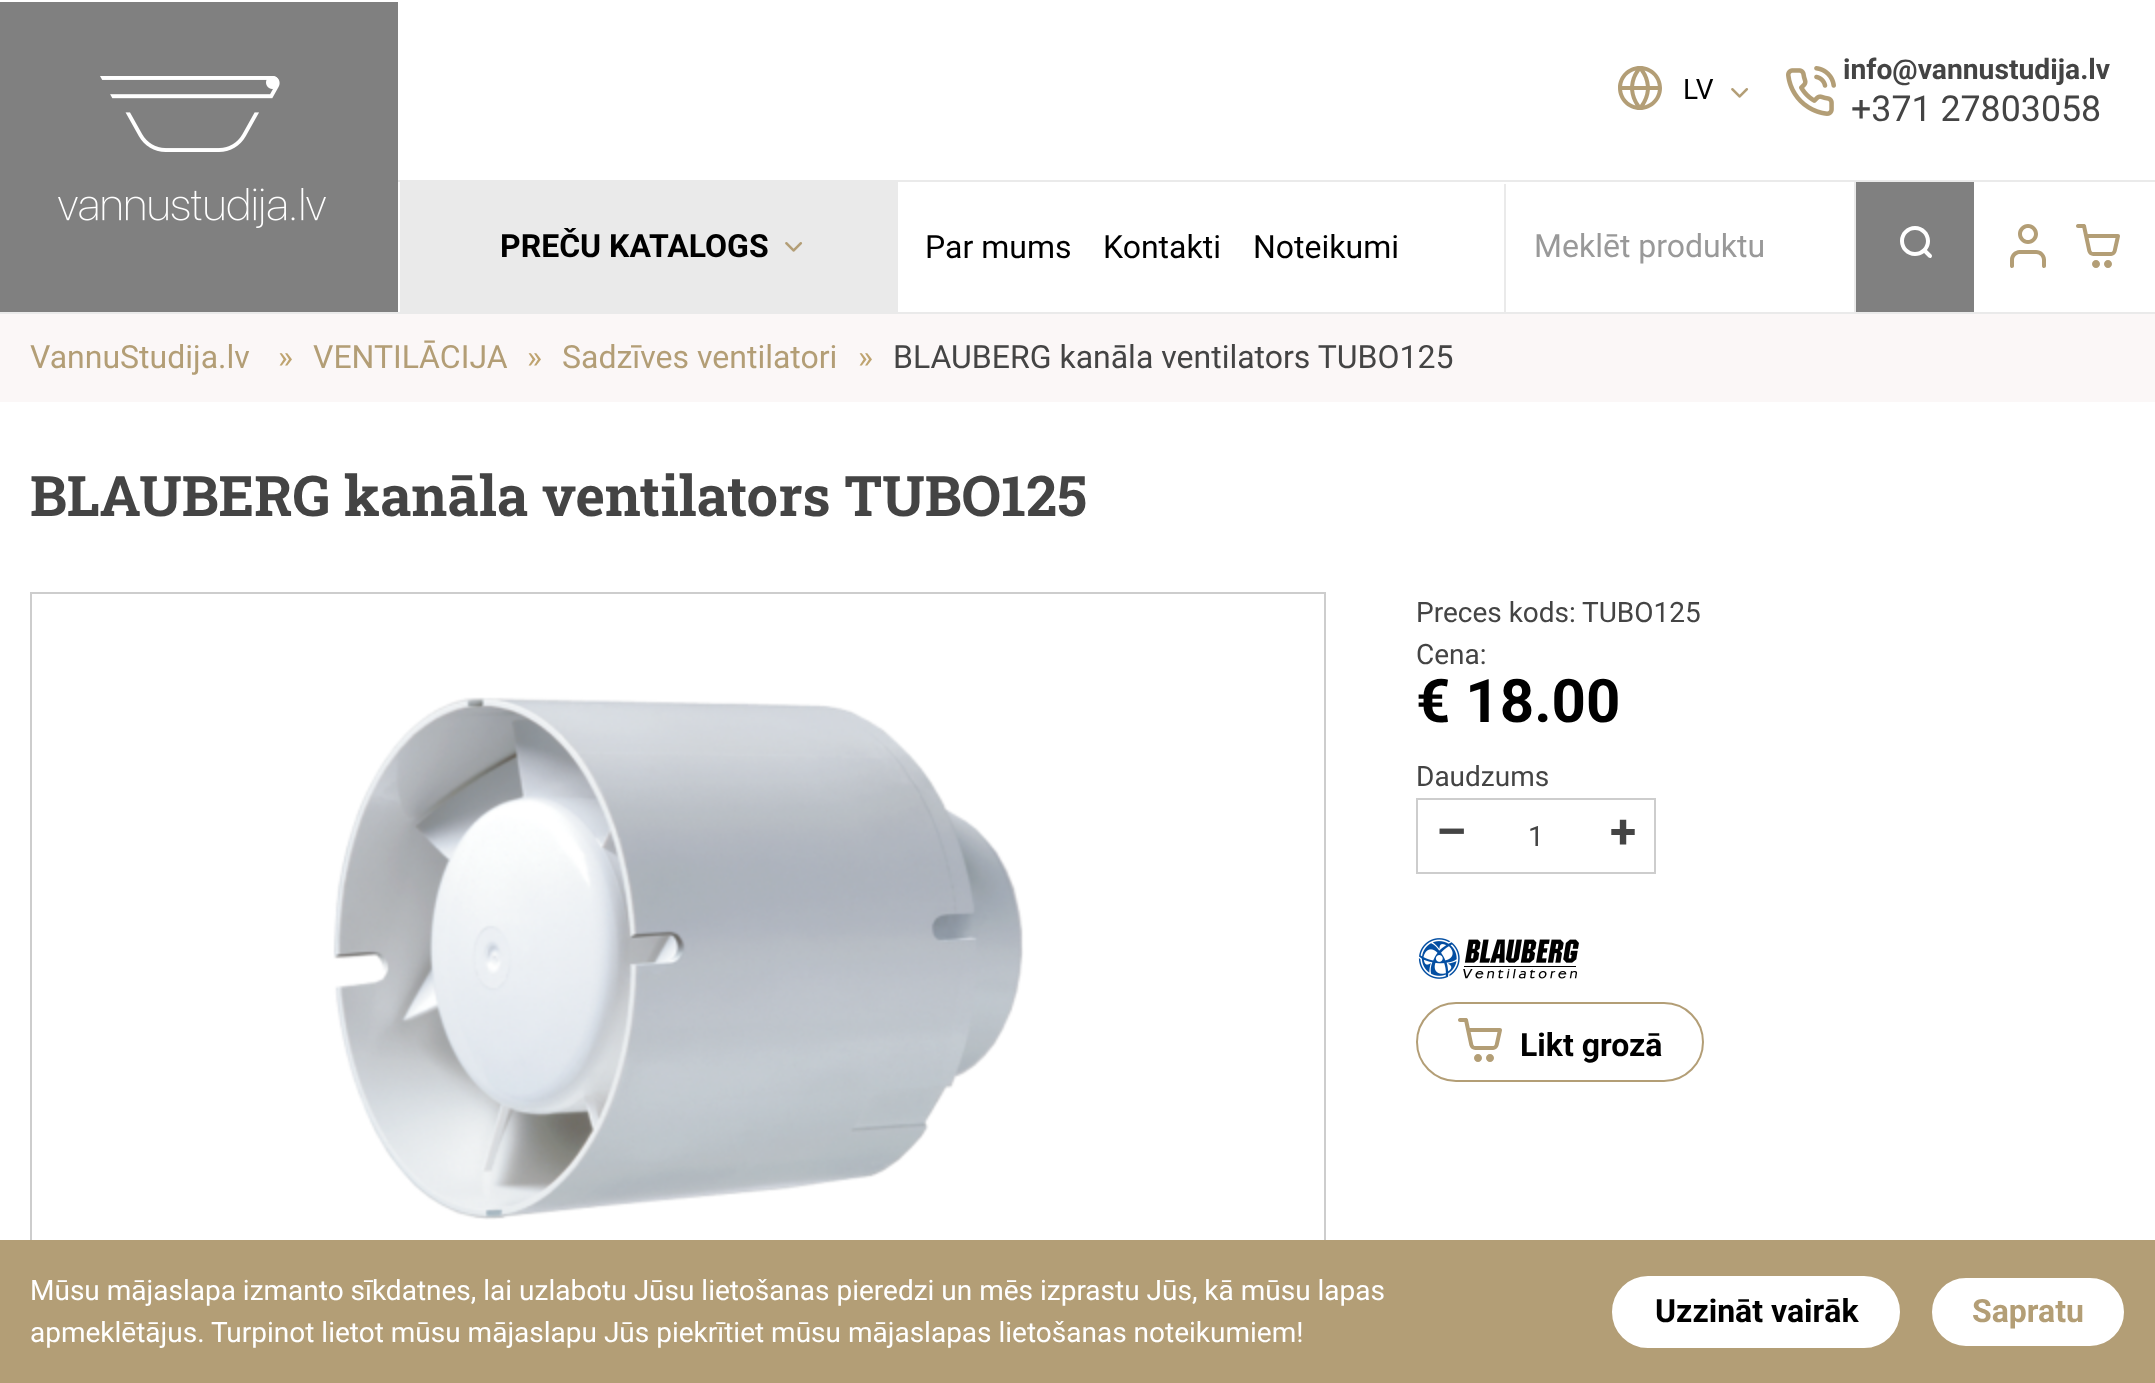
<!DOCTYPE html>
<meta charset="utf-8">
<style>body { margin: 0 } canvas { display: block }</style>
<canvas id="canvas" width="2155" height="1383"></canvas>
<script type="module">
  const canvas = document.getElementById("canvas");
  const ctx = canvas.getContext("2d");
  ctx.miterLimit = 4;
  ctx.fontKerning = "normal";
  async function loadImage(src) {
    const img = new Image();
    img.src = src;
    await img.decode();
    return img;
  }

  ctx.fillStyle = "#ffffff";
  ctx.fillRect(0, 0, 2155, 1383);
  ctx.fillStyle = "#808080";
  ctx.fillRect(0, 2, 398, 310);
  ctx.drawImage(await loadImage("img1.png"), 58, 76, 268, 152);
  ctx.drawImage(await loadImage("img2.png"), 1618, 66, 44, 44);
  ctx.font = "28px Roboto";
  ctx.fillStyle = "#000000";
  ctx.fillText("LV", 1683, 99);
  ctx.drawImage(await loadImage("img3.png"), 1731, 88, 18, 10);
  ctx.drawImage(await loadImage("img4.png"), 1786, 66, 50, 50);
  ctx.font = "bold 28.25px Roboto";
  ctx.fillStyle = "#444444";
  ctx.fillText("info@vannustudija.lv", 1843, 79);
  ctx.font = "35.75px Roboto";
  ctx.fillText("+371 27803058", 1851, 121);
  ctx.fillStyle = "#eaeaea";
  ctx.fillRect(398, 180, 1757, 2);
  ctx.fillRect(0, 312, 2155, 2);
  ctx.fillRect(400, 182, 498, 130);
  ctx.font = "bold 32px Roboto";
  ctx.fillStyle = "#000000";
  ctx.fillText("PREČU KATALOGS", 500, 257);
  ctx.drawImage(await loadImage("img5.png"), 785, 242, 18, 10);
  ctx.font = "32px Roboto";
  ctx.fillText("Par mums", 925, 258);
  ctx.fillText("Kontakti", 1103, 258);
  ctx.fillText("Noteikumi", 1253, 258);
  ctx.fillStyle = "#eaeaea";
  ctx.fillRect(1504, 184, 2, 128);
  ctx.fillStyle = "#999999";
  ctx.fillText("Meklēt produktu", 1534, 257);
  ctx.fillStyle = "#808080";
  ctx.fillRect(1856, 182, 118, 130);
  ctx.fillStyle = "#eaeaea";
  ctx.fillRect(1854, 182, 2, 130);
  ctx.drawImage(await loadImage("img6.png"), 1900, 226, 32, 32);
  ctx.drawImage(await loadImage("img7.png"), 2010, 224, 36, 44);
  ctx.drawImage(await loadImage("img8.png"), 2076, 224, 44, 44);
  ctx.fillStyle = "#fbf7f7";
  ctx.fillRect(0, 314, 2155, 88);
  ctx.fillStyle = "#b39e76";
  ctx.fillText("VannuStudija.lv", 30, 368);
  ctx.fillStyle = "#bfa470";
  ctx.fillText("»", 278, 368);
  ctx.fillStyle = "#b39e76";
  ctx.fillText("VENTILĀCIJA", 313, 368);
  ctx.fillStyle = "#bfa470";
  ctx.fillText("»", 527, 368);
  ctx.fillStyle = "#b39e76";
  ctx.fillText("Sadzīves ventilatori", 562, 368);
  ctx.fillStyle = "#bfa470";
  ctx.fillText("»", 858, 368);
  ctx.fillStyle = "#444444";
  ctx.fillText("BLAUBERG kanāla ventilators TUBO125", 893, 368);
  ctx.font = "bold 56px Roboto Slab";
  ctx.fillText("BLAUBERG kanāla ventilators TUBO125", 30, 516);
  ctx.strokeStyle = "#cdcdcd";
  ctx.lineWidth = 2;
  ctx.strokeRect(31, 593, 1294, 740);
  ctx.drawImage(await loadImage("img9.png"), 333, 697, 691, 523);
  ctx.font = "28px Roboto";
  ctx.fillText("Preces kods:", 1416, 622);
  ctx.fillText("TUBO125", 1582, 622);
  ctx.fillText("Cena:", 1416, 664);
  ctx.font = "bold 60px Roboto";
  ctx.fillStyle = "#000000";
  ctx.fillText("€ 18.00", 1416, 722);
  ctx.font = "28px Roboto";
  ctx.fillStyle = "#444444";
  ctx.fillText("Daudzums", 1416, 786);
  ctx.strokeRect(1417, 799, 238, 74);
  ctx.font = "bold 48px Roboto";
  ctx.fillText("–", 1436, 848);
  ctx.font = "28px Roboto";
  ctx.fillText("1", 1528, 846);
  ctx.font = "bold 48px Roboto";
  ctx.fillText("+", 1610, 848);
  ctx.drawImage(await loadImage("img10.png"), 1418, 938, 161, 41);
  ctx.beginPath();
  ctx.roundRect(1417, 1003, 286, 78, 39);
  ctx.strokeStyle = "#b39e76";
  ctx.stroke();
  ctx.drawImage(await loadImage("img8.png"), 1458, 1018, 44, 44);
  ctx.font = "bold 32px Roboto";
  ctx.fillStyle = "#000000";
  ctx.fillText("Likt grozā", 1520, 1056);
  ctx.fillStyle = "#b39e76";
  ctx.fillRect(0, 1240, 2155, 143);
  ctx.font = "28px Roboto";
  ctx.fillStyle = "#ffffff";
  ctx.fillText("Mūsu mājaslapa izmanto sīkdatnes, lai uzlabotu Jūsu lietošanas pieredzi un mēs izprastu Jūs, kā mūsu lapas", 30, 1300);
  ctx.fillText("apmeklētājus. Turpinot lietot mūsu mājaslapu Jūs piekrītiet mūsu mājaslapas lietošanas noteikumiem!", 30, 1342);
  ctx.beginPath();
  ctx.roundRect(1613, 1277, 286, 70, 35);
  ctx.fill();
  ctx.strokeStyle = "#ffffff";
  ctx.stroke();
  ctx.font = "bold 32px Roboto";
  ctx.fillStyle = "#000000";
  ctx.fillText("Uzzināt vairāk", 1655, 1322);
  ctx.fillStyle = "#ffffff";
  ctx.beginPath();
  ctx.roundRect(1931, 1277, 194, 70, 35);
  ctx.fill();
  ctx.strokeStyle = "#b39e76";
  ctx.stroke();
  ctx.fillStyle = "#b39e76";
  ctx.fillText("Sapratu", 1972, 1322);
</script>
